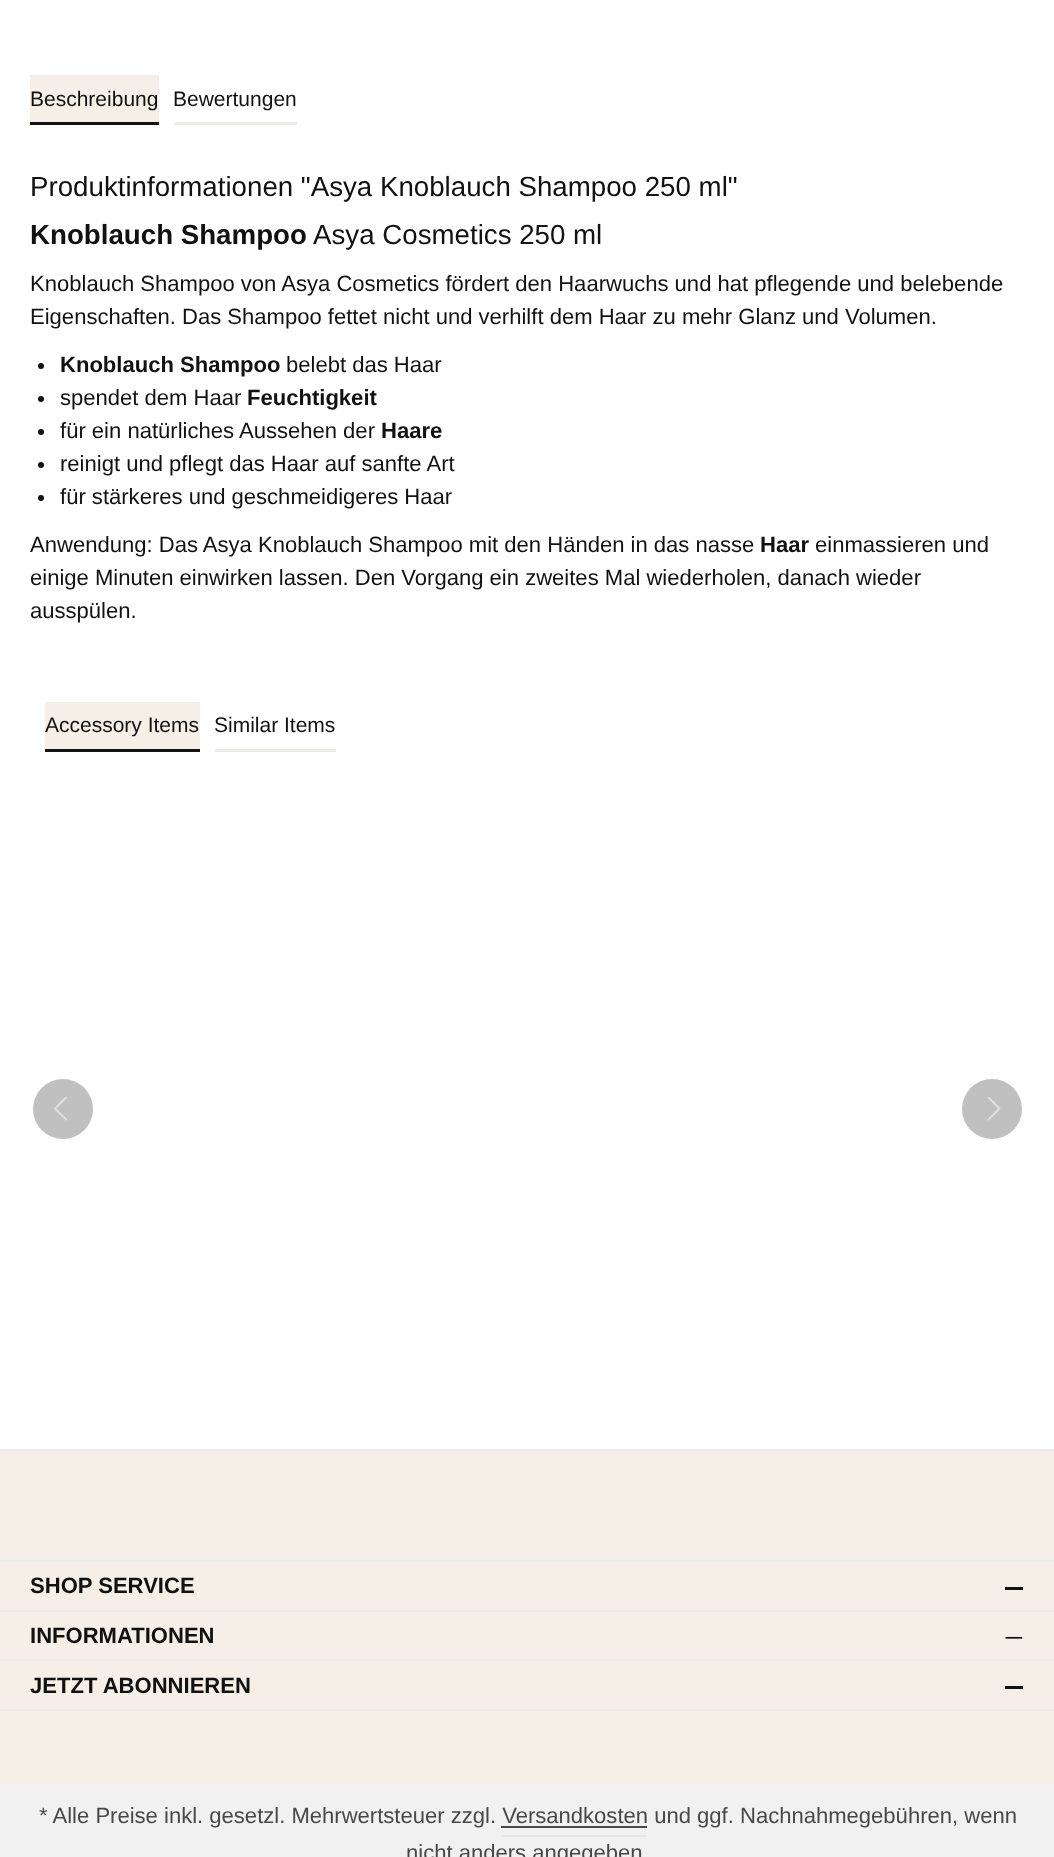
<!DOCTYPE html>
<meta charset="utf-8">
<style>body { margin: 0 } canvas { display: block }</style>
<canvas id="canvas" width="1054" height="1857"></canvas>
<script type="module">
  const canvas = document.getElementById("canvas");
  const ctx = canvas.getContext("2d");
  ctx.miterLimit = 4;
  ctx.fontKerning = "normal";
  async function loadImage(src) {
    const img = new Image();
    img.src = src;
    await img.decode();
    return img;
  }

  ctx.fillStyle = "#ffffff";
  ctx.fillRect(0, 0, 1054, 1857);
  ctx.fillStyle = "#f5efe7";
  ctx.fillRect(30, 75, 129, 47);
  ctx.fillStyle = "#131313";
  ctx.fillRect(30, 122, 129, 3);
  ctx.font = "21px Liberation Sans";
  ctx.fillStyle = "#111111";
  ctx.fillText("Beschreibung", 30, 106);
  ctx.fillStyle = "#ecece7";
  ctx.fillRect(174, 122, 123, 3);
  ctx.fillStyle = "#111111";
  ctx.fillText("Bewertungen", 173, 106);
  ctx.font = "27.7px Liberation Sans";
  ctx.fillText("Produktinformationen \"Asya Knoblauch Shampoo 250 ml\"", 30, 196);
  ctx.font = "bold 27.7px Liberation Sans";
  ctx.fillText("Knoblauch Shampoo", 30, 244);
  ctx.font = "27.7px Liberation Sans";
  ctx.fillText("Asya Cosmetics 250 ml", 313, 244);
  ctx.font = "22.05px Liberation Sans";
  ctx.fillText("Knoblauch Shampoo von Asya Cosmetics fördert den Haarwuchs und hat pflegende und belebende", 30, 291);
  ctx.fillText("Eigenschaften. Das Shampoo fettet nicht und verhilft dem Haar zu mehr Glanz und Volumen.", 30, 324);
  ctx.fillStyle = "#131313";
  ctx.beginPath();
  ctx.arc(41, 366, 3, 0, Math.PI * 2);
  ctx.fill();
  ctx.font = "bold 22.05px Liberation Sans";
  ctx.fillStyle = "#111111";
  ctx.fillText("Knoblauch Shampoo", 60, 372);
  ctx.font = "22.05px Liberation Sans";
  ctx.fillText("belebt das Haar", 286, 372);
  ctx.fillStyle = "#131313";
  ctx.beginPath();
  ctx.arc(41, 399, 3, 0, Math.PI * 2);
  ctx.fill();
  ctx.fillStyle = "#111111";
  ctx.fillText("spendet dem Haar", 60, 405);
  ctx.font = "bold 22.05px Liberation Sans";
  ctx.fillText("Feuchtigkeit", 247, 405);
  ctx.fillStyle = "#131313";
  ctx.beginPath();
  ctx.arc(41, 432, 3, 0, Math.PI * 2);
  ctx.fill();
  ctx.font = "22.05px Liberation Sans";
  ctx.fillStyle = "#111111";
  ctx.fillText("für ein natürliches Aussehen der", 60, 438);
  ctx.font = "bold 22.05px Liberation Sans";
  ctx.fillText("Haare", 381, 438);
  ctx.fillStyle = "#131313";
  ctx.beginPath();
  ctx.arc(41, 465, 3, 0, Math.PI * 2);
  ctx.fill();
  ctx.font = "22.05px Liberation Sans";
  ctx.fillStyle = "#111111";
  ctx.fillText("reinigt und pflegt das Haar auf sanfte Art", 60, 471);
  ctx.fillStyle = "#131313";
  ctx.beginPath();
  ctx.arc(41, 498, 3, 0, Math.PI * 2);
  ctx.fill();
  ctx.fillStyle = "#111111";
  ctx.fillText("für stärkeres und geschmeidigeres Haar", 60, 504);
  ctx.fillText("Anwendung: Das Asya Knoblauch Shampoo mit den Händen in das nasse", 30, 552);
  ctx.font = "bold 22.05px Liberation Sans";
  ctx.fillText("Haar", 760, 552);
  ctx.font = "22.05px Liberation Sans";
  ctx.fillText("einmassieren und", 815, 552);
  ctx.fillText("einige Minuten einwirken lassen. Den Vorgang ein zweites Mal wiederholen, danach wieder", 30, 585);
  ctx.fillText("ausspülen.", 30, 618);
  ctx.fillStyle = "#f5efe7";
  ctx.fillRect(45, 702, 155, 47);
  ctx.fillStyle = "#131313";
  ctx.fillRect(45, 749, 155, 3);
  ctx.font = "21px Liberation Sans";
  ctx.fillStyle = "#111111";
  ctx.fillText("Accessory Items", 45, 732);
  ctx.fillStyle = "#ecece7";
  ctx.fillRect(215, 749, 121, 3);
  ctx.fillStyle = "#111111";
  ctx.fillText("Similar Items", 214, 732);
  ctx.fillStyle = "#c0c0c0";
  ctx.beginPath();
  ctx.arc(63, 1109, 30, 0, Math.PI * 2);
  ctx.fill();
  ctx.drawImage(await loadImage("img1.png"), 54, 1097, 13, 24);
  ctx.beginPath();
  ctx.arc(992, 1109, 30, 0, Math.PI * 2);
  ctx.fill();
  ctx.drawImage(await loadImage("img2.png"), 987, 1097, 14, 24);
  ctx.fillStyle = "#f5efe7";
  ctx.fillRect(0, 1451, 1054, 334);
  ctx.fillStyle = "#ebebeb";
  ctx.fillRect(0, 1449, 1054, 2);
  ctx.fillStyle = "#ecece7";
  ctx.fillRect(0, 1560, 1054, 2);
  ctx.fillRect(0, 1610, 1054, 2);
  ctx.font = "bold 22.05px Liberation Sans";
  ctx.fillStyle = "#111111";
  ctx.fillText("SHOP SERVICE", 30, 1593);
  ctx.fillRect(1005, 1587, 18, 3);
  ctx.fillStyle = "#ecece7";
  ctx.fillRect(0, 1659, 1054, 2);
  ctx.fillStyle = "#111111";
  ctx.fillText("INFORMATIONEN", 30, 1643);
  ctx.drawImage(await loadImage("img3.png"), 1005, 1636, 18, 3);
  ctx.fillStyle = "#ecece7";
  ctx.fillRect(0, 1709, 1054, 2);
  ctx.fillStyle = "#111111";
  ctx.fillText("JETZT ABONNIEREN", 30, 1693);
  ctx.fillRect(1005, 1686, 18, 3);
  ctx.fillStyle = "#f1f1f1";
  ctx.fillRect(0, 1785, 1054, 72);
  ctx.font = "22.05px Liberation Sans";
  ctx.fillStyle = "#484848";
  ctx.fillText("* Alle Preise inkl. gesetzl. Mehrwertsteuer zzgl. Versandkosten und ggf. Nachnahmegebühren, wenn", 39, 1823);
  ctx.fillStyle = "#e6e6e6";
  ctx.fillRect(501, 1835, 146, 2);
  ctx.fillStyle = "#484848";
  ctx.fillRect(501, 1826, 146, 2);
  ctx.fillText("nicht anders angegeben", 406, 1860);
</script>
